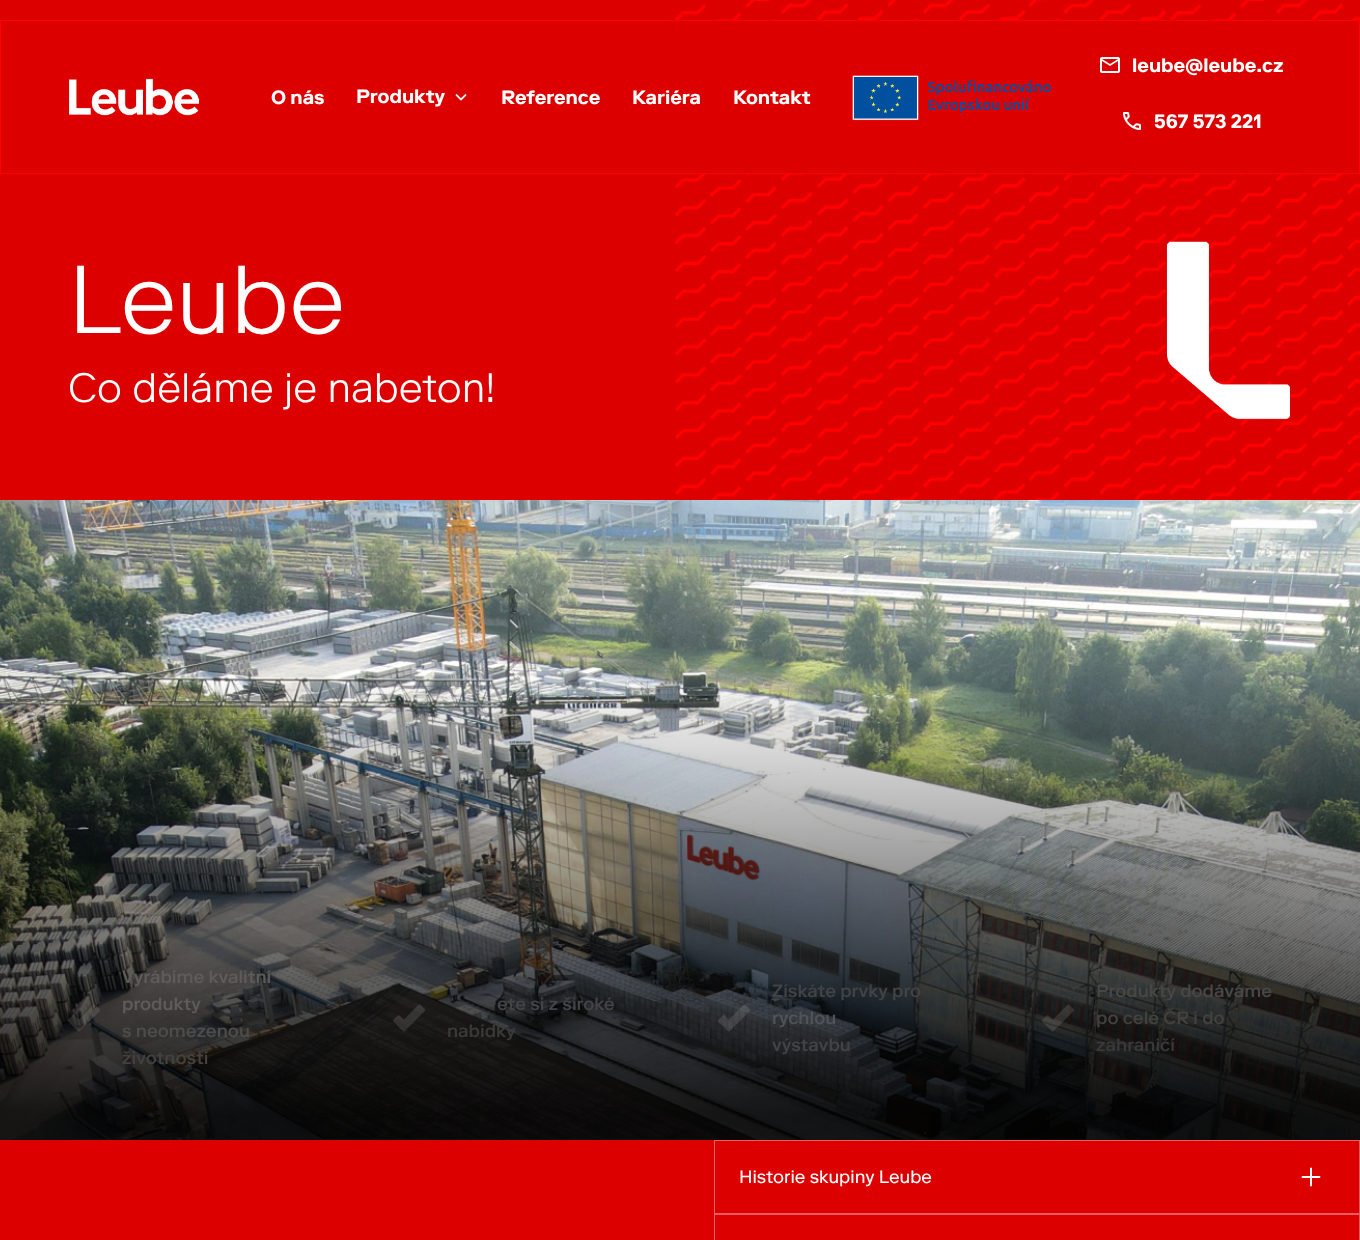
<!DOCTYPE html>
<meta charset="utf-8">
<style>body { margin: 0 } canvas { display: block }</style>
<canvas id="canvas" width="1360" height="1240"></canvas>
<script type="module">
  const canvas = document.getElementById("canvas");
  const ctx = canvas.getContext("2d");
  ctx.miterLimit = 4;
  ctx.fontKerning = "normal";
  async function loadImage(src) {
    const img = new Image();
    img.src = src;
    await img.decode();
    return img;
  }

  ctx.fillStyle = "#dc0000";
  ctx.fillRect(0, 0, 1360, 1240);
  ctx.drawImage(await loadImage("img6.png"), 0, 0, 1360, 500);
  ctx.fillRect(675, 21, 684, 152);
  ctx.strokeStyle = "#ff0000";
  ctx.strokeRect(0.5, 20.5, 1359, 153);
  ctx.drawImage(await loadImage("img1.png"), 69, 78, 130, 38);
  ctx.font = "bold 19.25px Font";
  ctx.fillStyle = "#ffffff";
  ctx.fillText("O nás", 271, 104);
  ctx.fillText("Produkty", 356, 103);
  ctx.drawImage(await loadImage("img2.png"), 455, 94, 12, 7);
  ctx.fillText("Reference", 501, 104);
  ctx.fillText("Kariéra", 632, 104);
  ctx.fillText("Kontakt", 733, 104);
  ctx.drawImage(await loadImage("img3.png"), 852, 75, 199, 46);
  ctx.drawImage(await loadImage("img4.png"), 1100, 57, 20, 16);
  ctx.fillText("leube@leube.cz", 1132, 72);
  ctx.drawImage(await loadImage("img5.png"), 1123, 112, 18, 18);
  ctx.fillText("567 573 221", 1154, 128);
  ctx.font = "300 96px Font";
  ctx.fillText("Leube", 68, 333);
  ctx.font = "300 41px Font";
  ctx.fillText("Co děláme je nabeton!", 68, 402);
  ctx.drawImage(await loadImage("img7.png"), 1166, 241, 124, 179);
  ctx.drawImage(await loadImage("img8.png"), 0, 500, 1360, 640);
  ctx.drawImage(await loadImage("img9.png"), 68, 1004, 32, 28);
  ctx.font = "500 18px Font";
  ctx.fillStyle = "#5e5c5b";
  ctx.fillText("Vyrábíme kvalitní", 122, 983);
  ctx.fillText("produkty", 122, 1010);
  ctx.fillStyle = "#4d4c4c";
  ctx.fillText("s neomezenou", 122, 1037);
  ctx.fillStyle = "#43413e";
  ctx.fillText("životností", 122, 1064);
  ctx.drawImage(await loadImage("img10.png"), 393, 1004, 32, 28);
  ctx.fillStyle = "#414345";
  ctx.fillText("ete si z široké", 497, 1010);
  ctx.fillStyle = "#3a3939";
  ctx.fillText("nabídky", 447, 1037);
  ctx.drawImage(await loadImage("img11.png"), 718, 1004, 32, 28);
  ctx.fillStyle = "#414345";
  ctx.fillText("Získáte prvky pro", 772, 997);
  ctx.fillStyle = "#505358";
  ctx.fillText("rychlou", 772, 1024);
  ctx.fillStyle = "#414345";
  ctx.fillText("výstavbu", 772, 1051);
  ctx.drawImage(await loadImage("img12.png"), 1042, 1004, 32, 28);
  ctx.fillStyle = "#474746";
  ctx.fillText("Produkty dodáváme", 1096, 997);
  ctx.fillStyle = "#43413e";
  ctx.fillText("po celé ČR i do", 1096, 1024);
  ctx.fillStyle = "#3a3939";
  ctx.fillText("zahraničí", 1096, 1051);
  ctx.strokeStyle = "#e95e5e";
  ctx.strokeRect(714.5, 1140.5, 645, 73);
  ctx.font = "18px Font";
  ctx.fillStyle = "#ffffff";
  ctx.fillText("Historie skupiny Leube", 739, 1183);
  ctx.drawImage(await loadImage("img13.png"), 1301, 1167, 20, 20);
  ctx.strokeRect(714.5, 1214.5, 645, 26);
</script>
